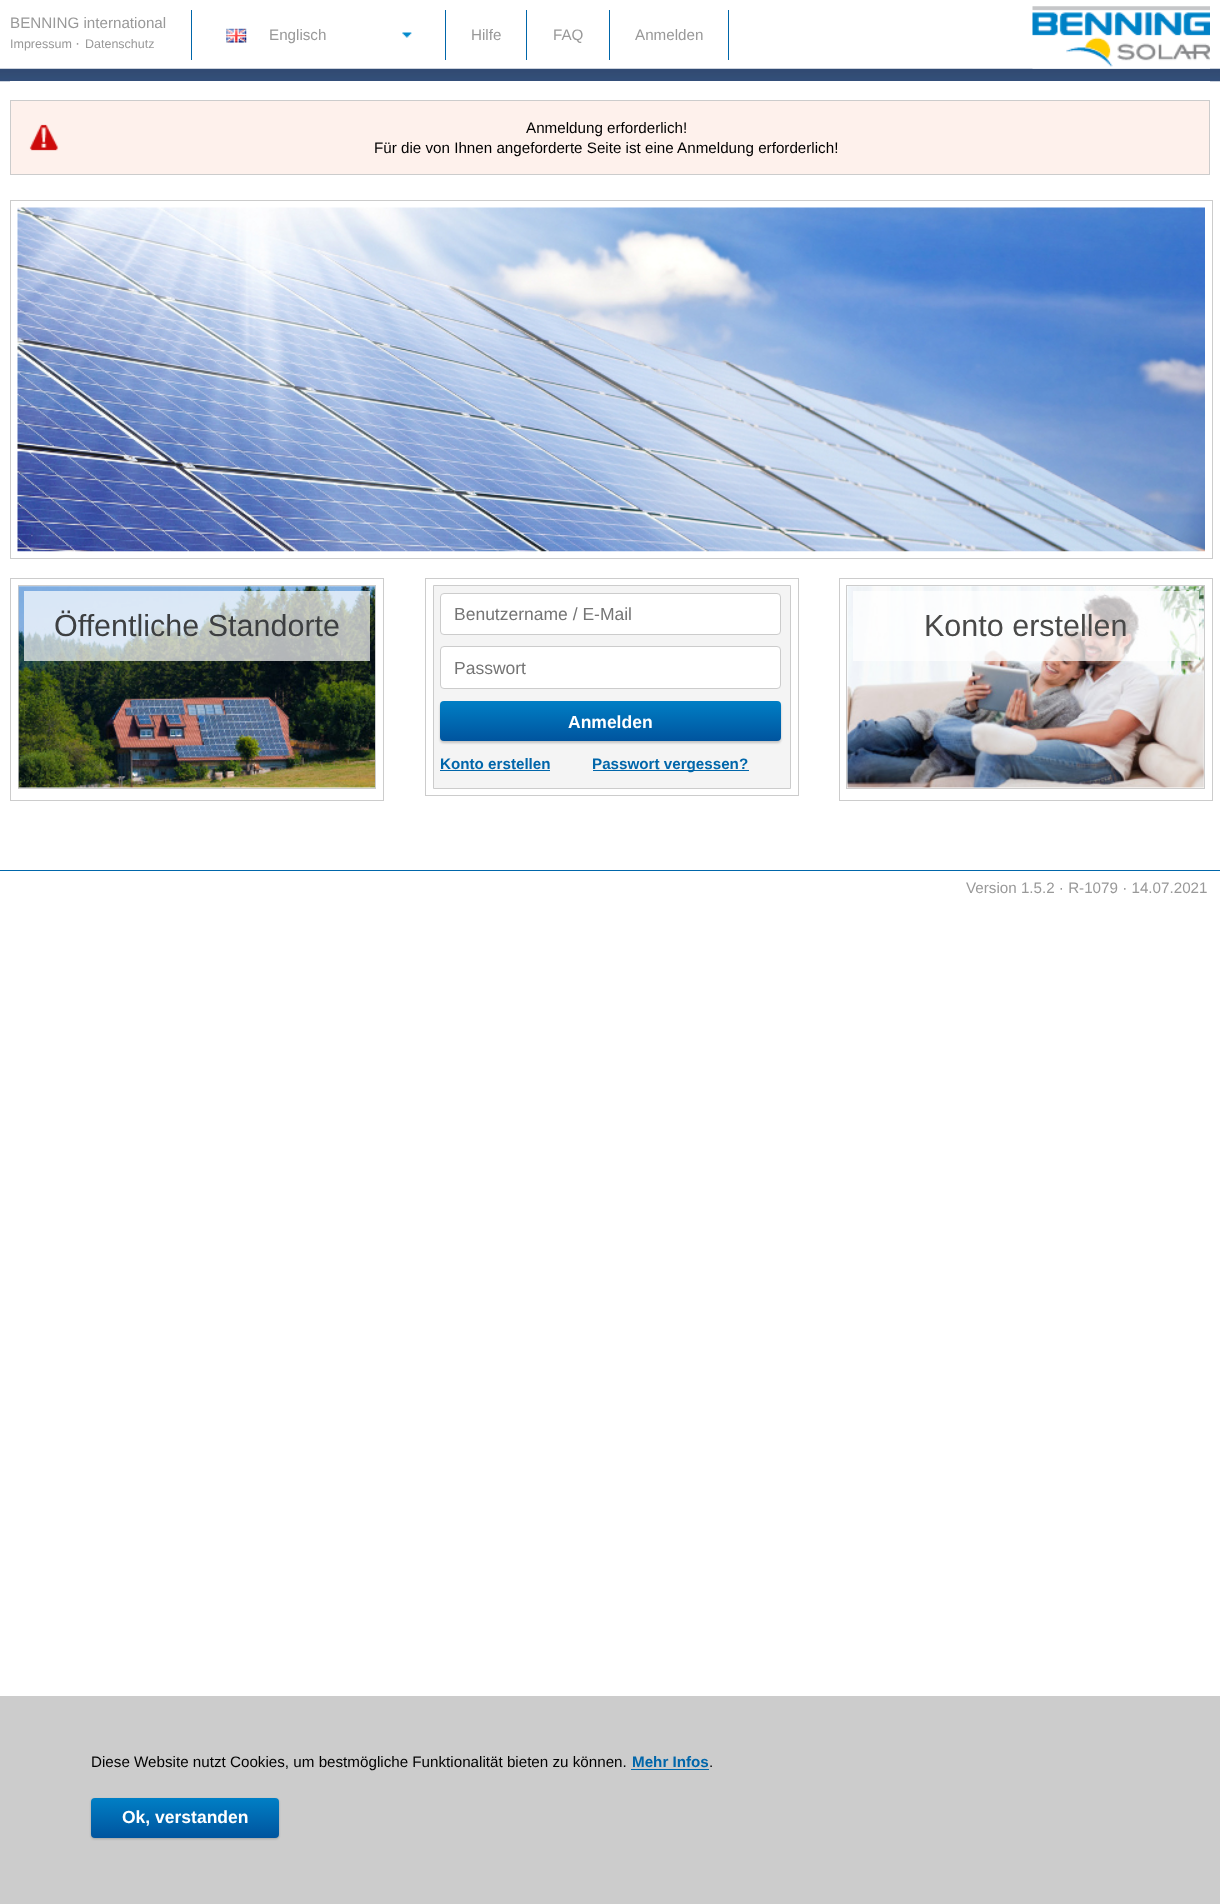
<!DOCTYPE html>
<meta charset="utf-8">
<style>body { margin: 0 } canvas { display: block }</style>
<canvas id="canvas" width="1220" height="1904"></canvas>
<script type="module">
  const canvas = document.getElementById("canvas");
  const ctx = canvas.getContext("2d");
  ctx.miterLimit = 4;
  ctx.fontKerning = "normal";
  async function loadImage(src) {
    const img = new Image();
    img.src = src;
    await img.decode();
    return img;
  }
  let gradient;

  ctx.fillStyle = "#ffffff";
  ctx.fillRect(0, 0, 1220, 1904);
  ctx.fillStyle = "#0066aa";
  ctx.fillRect(191, 10, 1, 50);
  ctx.font = "15.2px Liberation Sans";
  ctx.fillStyle = "#999999";
  ctx.fillText("BENNING international", 10, 28);
  ctx.font = "12.5px Liberation Sans";
  ctx.fillText("Impressum", 10, 48);
  ctx.font = "15.2px Liberation Sans";
  ctx.fillText("·", 75, 48);
  ctx.font = "12.5px Liberation Sans";
  ctx.fillText("Datenschutz", 85, 48);
  ctx.fillStyle = "#0066aa";
  ctx.fillRect(445, 10, 1, 50);
  ctx.drawImage(await loadImage("img1.png"), 226, 28, 21, 15);
  ctx.font = "15.2px Liberation Sans";
  ctx.fillStyle = "#999999";
  ctx.fillText("Englisch", 269, 40);
  ctx.drawImage(await loadImage("img2.png"), 402, 32, 10, 6);
  ctx.fillStyle = "#0066aa";
  ctx.fillRect(526, 10, 1, 50);
  ctx.fillStyle = "#999999";
  ctx.fillText("Hilfe", 471, 40);
  ctx.fillStyle = "#0066aa";
  ctx.fillRect(609, 10, 1, 50);
  ctx.fillStyle = "#999999";
  ctx.fillText("FAQ", 553, 40);
  ctx.fillStyle = "#0066aa";
  ctx.fillRect(728, 10, 1, 50);
  ctx.fillStyle = "#999999";
  ctx.fillText("Anmelden", 635, 40);
  ctx.drawImage(await loadImage("img4.png"), 0, 68, 1220, 14);
  ctx.drawImage(await loadImage("img3.png"), 1032, 6, 178, 63);
  ctx.fillStyle = "#ffffff";
  ctx.fillRect(10, 81, 1200, 1);
  ctx.fillStyle = "#fef1ec";
  ctx.fillRect(11, 101, 1198, 73);
  ctx.drawImage(await loadImage("img5.png"), 29, 124, 30, 27);
  ctx.strokeStyle = "#cccccc";
  ctx.strokeRect(10.5, 100.5, 1199, 74);
  ctx.fillStyle = "#000000";
  ctx.fillText("Anmeldung erforderlich!", 526, 133);
  ctx.fillText("Für die von Ihnen angeforderte Seite ist eine Anmeldung erforderlich!", 374, 153);
  ctx.strokeRect(10.5, 200.5, 1202, 358);
  ctx.drawImage(await loadImage("img6.png"), 17, 207, 1188, 345);
  ctx.strokeRect(10.5, 578.5, 373, 222);
  ctx.strokeRect(18.5, 585.5, 357, 203);
  ctx.drawImage(await loadImage("img7.png"), 18, 586, 357, 202);
  ctx.fillStyle = "rgba(255, 255, 255, 0.7)";
  ctx.fillRect(24, 591, 346, 70);
  ctx.font = "30.5px Liberation Sans";
  ctx.fillStyle = "#3d3f41";
  ctx.fillText("Öffentliche Standorte", 54, 636);
  ctx.strokeRect(425.5, 578.5, 373, 217);
  ctx.fillStyle = "#f4f4f4";
  ctx.beginPath();
  ctx.rect(433.5, 585.5, 357, 203);
  ctx.fill();
  ctx.stroke();
  ctx.fillStyle = "#ffffff";
  ctx.beginPath();
  ctx.roundRect(440.5, 593.5, 340, 41, 3.5);
  ctx.fill();
  ctx.stroke();
  ctx.font = "17.5px Liberation Sans";
  ctx.fillStyle = "#757575";
  ctx.fillText("Benutzername / E-Mail", 454, 620);
  ctx.fillStyle = "#ffffff";
  ctx.beginPath();
  ctx.roundRect(440.5, 646.5, 340, 42, 3.5);
  ctx.fill();
  ctx.stroke();
  ctx.fillStyle = "#757575";
  ctx.fillText("Passwort", 454, 674);
  ctx.fillStyle = "rgba(0, 0, 0, 0.2)";
  ctx.filter = "blur(1px)";
  ctx.beginPath();
  ctx.roundRect(440, 703, 341, 40, 4);
  ctx.fill();
  ctx.filter = "none";
  gradient = ctx.createLinearGradient(440, 701, 440, 741);
  gradient.addColorStop(0, "#007fc5");
  gradient.addColorStop(1, "#00549e");
  ctx.fillStyle = gradient;
  ctx.beginPath();
  ctx.roundRect(440, 701, 341, 40, 4);
  ctx.fill();
  ctx.font = "bold 17.5px Liberation Sans";
  ctx.fillStyle = "#ffffff";
  ctx.fillText("Anmelden", 568, 728);
  ctx.font = "bold 15.2px Liberation Sans";
  ctx.fillStyle = "#0066aa";
  ctx.fillText("Konto erstellen", 440, 769);
  ctx.fillRect(440, 770, 110, 1);
  ctx.fillRect(593, 770, 156, 1);
  ctx.fillText("Passwort vergessen?", 592, 769);
  ctx.strokeRect(839.5, 578.5, 373, 222);
  ctx.strokeRect(846.5, 585.5, 358, 203);
  ctx.drawImage(await loadImage("img8.png"), 847, 586, 357, 202);
  ctx.fillStyle = "rgba(255, 255, 255, 0.7)";
  ctx.fillRect(853, 591, 346, 70);
  ctx.font = "30.5px Liberation Sans";
  ctx.fillStyle = "#494948";
  ctx.fillText("Konto erstellen", 924, 636);
  ctx.fillStyle = "#0066aa";
  ctx.fillRect(0, 870, 1220, 1);
  ctx.font = "15.2px Liberation Sans";
  ctx.fillStyle = "#999999";
  ctx.fillText("Version 1.5.2 · R-1079 · 14.07.2021", 966, 893);
  ctx.fillStyle = "#cccccc";
  ctx.fillRect(0, 1696, 1220, 208);
  ctx.fillStyle = "#000000";
  ctx.fillText("Diese Website nutzt Cookies, um bestmögliche Funktionalität bieten zu können.", 91, 1767);
  ctx.font = "bold 15.2px Liberation Sans";
  ctx.fillStyle = "#0066aa";
  ctx.fillText("Mehr Infos", 632, 1767);
  ctx.fillRect(631, 1769, 78, 1);
  ctx.font = "15.2px Liberation Sans";
  ctx.fillStyle = "#000000";
  ctx.fillText(".", 709, 1767);
  ctx.fillStyle = "rgba(0, 0, 0, 0.2)";
  ctx.filter = "blur(1px)";
  ctx.beginPath();
  ctx.roundRect(91, 1799, 188, 40, 4);
  ctx.fill();
  ctx.filter = "none";
  gradient = ctx.createLinearGradient(91, 1798, 91, 1838);
  gradient.addColorStop(0, "#007fc5");
  gradient.addColorStop(1, "#00549e");
  ctx.fillStyle = gradient;
  ctx.beginPath();
  ctx.roundRect(91, 1798, 188, 40, 4);
  ctx.fill();
  ctx.font = "bold 17.5px Liberation Sans";
  ctx.fillStyle = "#ffffff";
  ctx.fillText("Ok, verstanden", 122, 1823);
</script>
